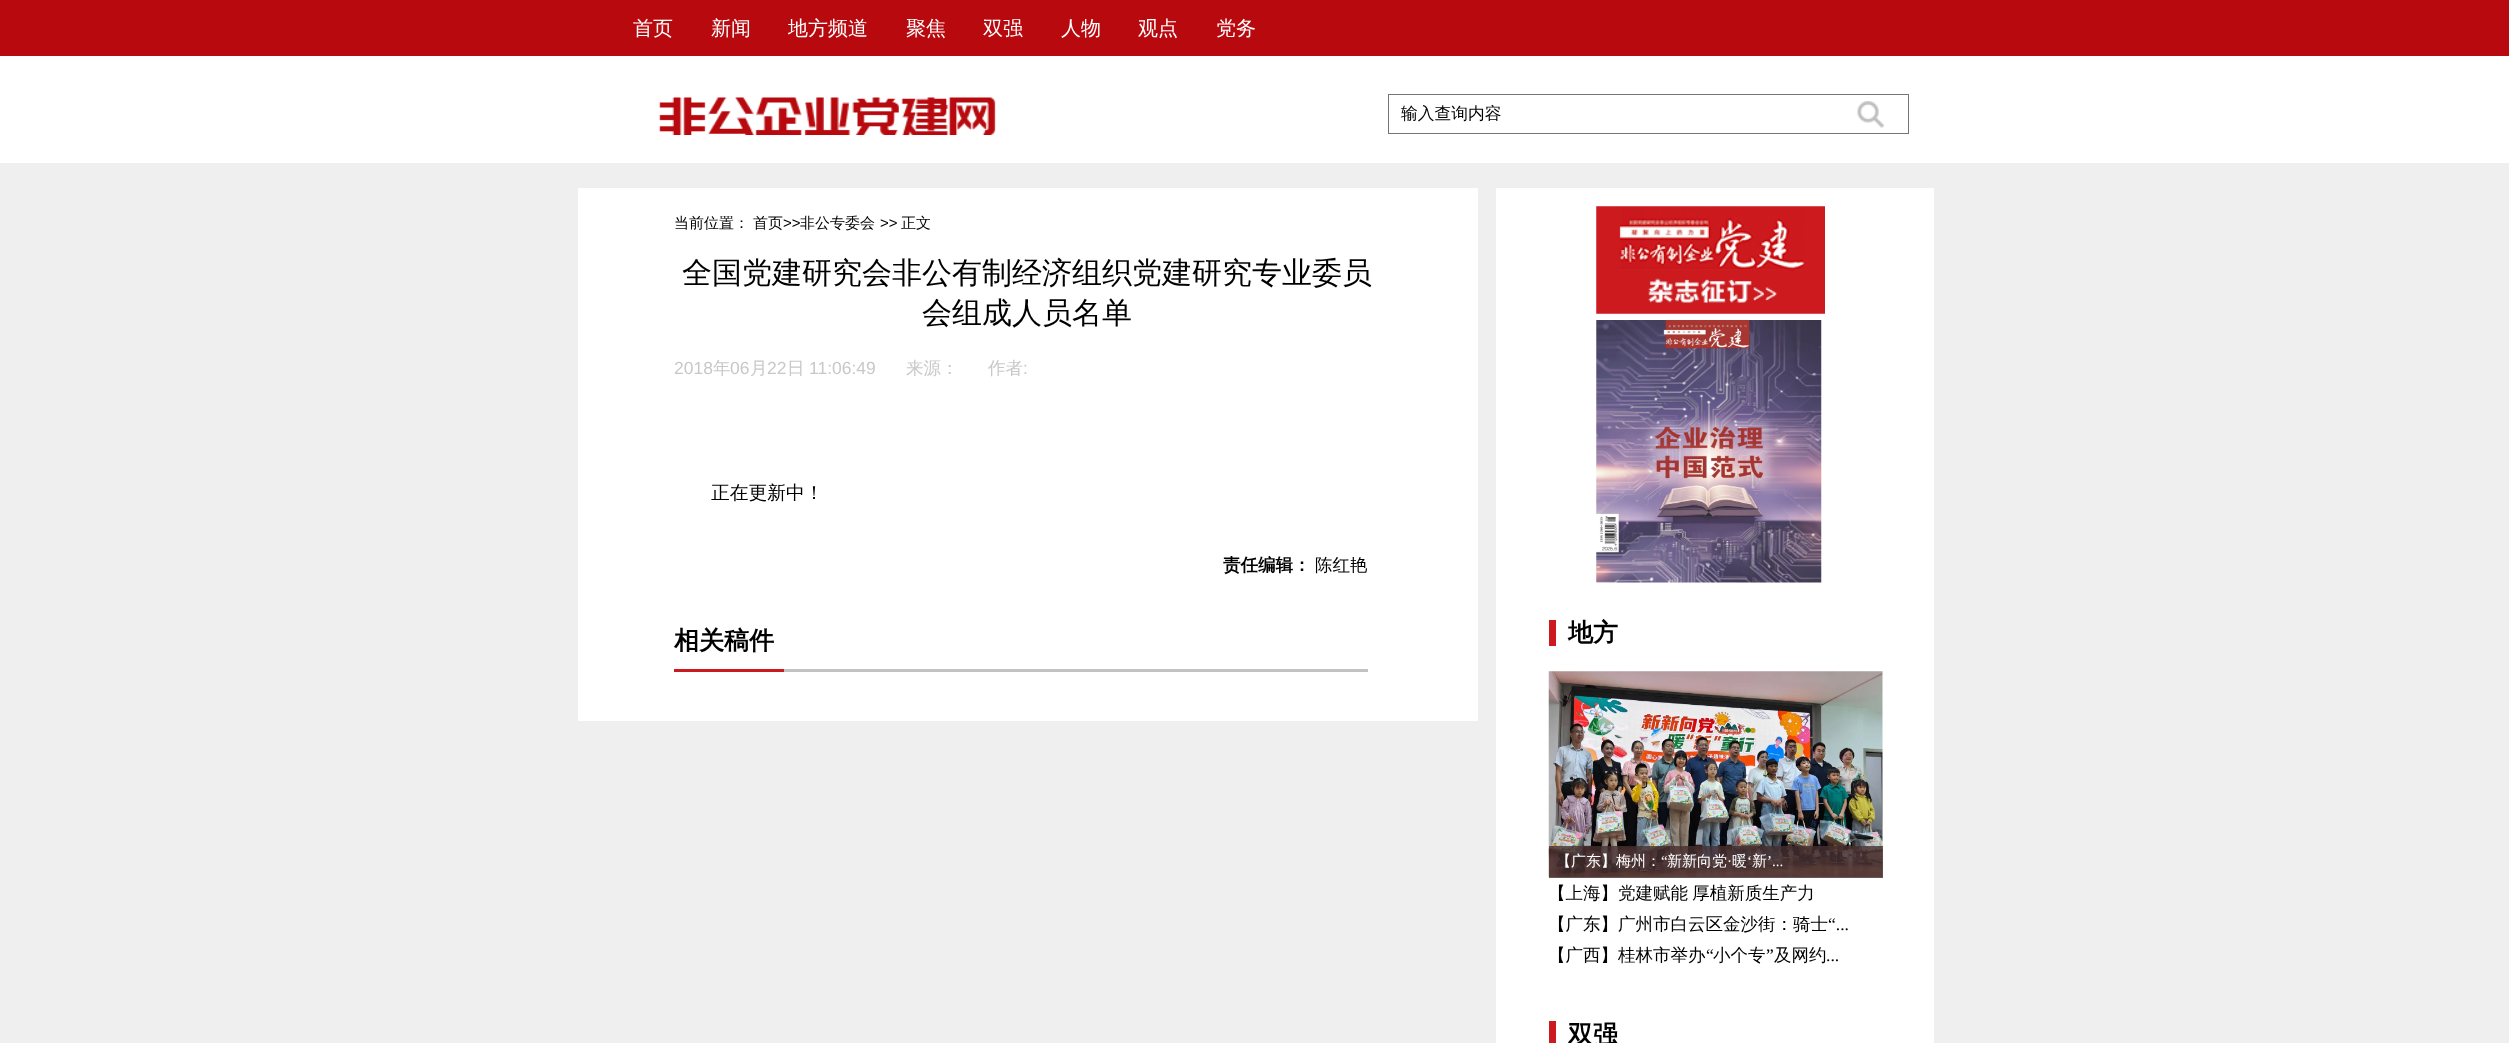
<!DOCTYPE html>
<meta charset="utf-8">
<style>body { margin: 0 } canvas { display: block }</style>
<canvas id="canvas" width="2509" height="1043"></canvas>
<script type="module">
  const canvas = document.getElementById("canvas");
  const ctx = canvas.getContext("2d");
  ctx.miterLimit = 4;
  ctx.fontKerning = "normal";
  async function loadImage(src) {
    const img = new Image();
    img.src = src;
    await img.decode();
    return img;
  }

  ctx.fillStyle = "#ffffff";
  ctx.fillRect(0, 0, 2509, 1043);
  ctx.fillStyle = "#b7090e";
  ctx.fillRect(0, 0, 2509, 56);
  ctx.font = "500 20px WenQuanYi Zen Hei";
  ctx.fillStyle = "#ffffff";
  ctx.fillText("首页", 633, 35);
  ctx.fillText("新闻", 711, 35);
  ctx.fillText("地方频道", 788, 35);
  ctx.fillText("聚焦", 906, 35);
  ctx.fillText("双强", 983, 35);
  ctx.fillText("人物", 1061, 35);
  ctx.fillText("观点", 1138, 35);
  ctx.fillText("党务", 1216, 35);
  ctx.drawImage(await loadImage("img1.png"), 658, 97, 338, 38);
  ctx.strokeStyle = "#757575";
  ctx.strokeRect(1388.5, 94.5, 520, 39);
  ctx.font = "500 16.75px WenQuanYi Zen Hei";
  ctx.fillStyle = "#000000";
  ctx.fillText("输入查询内容", 1401, 119);
  ctx.drawImage(await loadImage("img2.png"), 1857, 101, 27, 27);
  ctx.fillStyle = "#efefef";
  ctx.fillRect(0, 163, 2509, 880);
  ctx.fillStyle = "#ffffff";
  ctx.fillRect(578, 188, 900, 533);
  ctx.font = "500 15px WenQuanYi Zen Hei";
  ctx.fillStyle = "#000000";
  ctx.fillText("当前位置：", 674, 228);
  ctx.fillText("首页", 753, 228);
  ctx.font = "15px Liberation Sans";
  ctx.fillText(">>", 783, 228);
  ctx.font = "500 15px WenQuanYi Zen Hei";
  ctx.fillText("非公专委会", 800, 228);
  ctx.font = "15px Liberation Sans";
  ctx.fillText(">>", 880, 228);
  ctx.font = "500 15px WenQuanYi Zen Hei";
  ctx.fillText("正文", 901, 228);
  ctx.font = "500 30px WenQuanYi Zen Hei";
  ctx.fillText("全国党建研究会非公有制经济组织党建研究专业委员", 682, 283);
  ctx.fillText("会组成人员名单", 922, 323);
  ctx.font = "17.5px Liberation Sans";
  ctx.fillStyle = "#c8c8c8";
  ctx.fillText("2018", 674, 374);
  ctx.font = "500 17.5px WenQuanYi Zen Hei";
  ctx.fillText("年", 713, 374);
  ctx.font = "17.5px Liberation Sans";
  ctx.fillText("06", 730, 374);
  ctx.font = "500 17.5px WenQuanYi Zen Hei";
  ctx.fillText("月", 750, 374);
  ctx.font = "17.5px Liberation Sans";
  ctx.fillText("22", 767, 374);
  ctx.font = "500 17.5px WenQuanYi Zen Hei";
  ctx.fillText("日", 787, 374);
  ctx.font = "17.5px Liberation Sans";
  ctx.fillText("11:06:49", 809, 374);
  ctx.font = "500 17.5px WenQuanYi Zen Hei";
  ctx.fillText("来源：", 906, 374);
  ctx.fillText("作者", 988, 374);
  ctx.font = "17.5px Liberation Sans";
  ctx.fillText(":", 1023, 374);
  ctx.font = "500 18.75px WenQuanYi Zen Hei";
  ctx.fillStyle = "#000000";
  ctx.fillText("正在更新中！", 711, 499);
  ctx.font = "bold 17.5px WenQuanYi Zen Hei";
  ctx.fillText("责任编辑：", 1223, 571);
  ctx.font = "500 17.5px WenQuanYi Zen Hei";
  ctx.fillText("陈红艳", 1315, 571);
  ctx.fillStyle = "#c2c2c2";
  ctx.fillRect(784, 669, 584, 3);
  ctx.font = "bold 25px WenQuanYi Zen Hei";
  ctx.fillStyle = "#000000";
  ctx.fillText("相关稿件", 674, 649);
  ctx.fillStyle = "#cd1a1f";
  ctx.fillRect(674, 669, 110, 3);
  ctx.fillStyle = "#ffffff";
  ctx.fillRect(1496, 188, 438, 855);
  ctx.drawImage(await loadImage("img3.png"), 1596, 206, 229, 108);
  ctx.drawImage(await loadImage("img4.png"), 1596, 320, 226, 263);
  ctx.fillStyle = "#cd1a1f";
  ctx.fillRect(1549, 620, 7, 26);
  ctx.fillStyle = "#000000";
  ctx.fillText("地方", 1568, 641);
  ctx.drawImage(await loadImage("img5.png"), 1548, 671, 335, 207);
  ctx.fillStyle = "rgba(70, 46, 47, 0.8)";
  ctx.fillRect(1549, 846, 334, 32);
  ctx.font = "500 15px WenQuanYi Zen Hei";
  ctx.fillStyle = "#ffffff";
  ctx.fillText("【广东】梅州：", 1556, 866);
  ctx.font = "15px Liberation Serif";
  ctx.fillText("“", 1661, 866);
  ctx.font = "500 15px WenQuanYi Zen Hei";
  ctx.fillText("新新向党", 1667, 866);
  ctx.font = "15px Liberation Serif";
  ctx.fillText("·", 1727, 866);
  ctx.font = "500 15px WenQuanYi Zen Hei";
  ctx.fillText("暖", 1732, 866);
  ctx.font = "15px Liberation Serif";
  ctx.fillText("‘", 1747, 866);
  ctx.font = "500 15px WenQuanYi Zen Hei";
  ctx.fillText("新", 1752, 866);
  ctx.font = "15px Liberation Serif";
  ctx.fillText("’...", 1767, 866);
  ctx.wordSpacing = "-1px";
  ctx.font = "500 17.5px WenQuanYi Zen Hei";
  ctx.fillStyle = "#000000";
  ctx.fillText("【上海】党建赋能 厚植新质生产力", 1548, 899);
  ctx.wordSpacing = "0px";
  ctx.fillText("【广东】广州市白云区金沙街：骑士", 1548, 930);
  ctx.font = "17.5px Liberation Serif";
  ctx.fillText("“...", 1828, 930);
  ctx.font = "500 17.5px WenQuanYi Zen Hei";
  ctx.fillText("【广西】桂林市举办", 1548, 961);
  ctx.font = "17.5px Liberation Serif";
  ctx.fillText("“", 1706, 961);
  ctx.font = "500 17.5px WenQuanYi Zen Hei";
  ctx.fillText("小个专", 1713, 961);
  ctx.font = "17.5px Liberation Serif";
  ctx.fillText("”", 1766, 961);
  ctx.font = "500 17.5px WenQuanYi Zen Hei";
  ctx.fillText("及网约", 1774, 961);
  ctx.font = "17.5px Liberation Serif";
  ctx.fillText("...", 1826, 961);
  ctx.fillStyle = "#cd1a1f";
  ctx.fillRect(1549, 1021, 7, 22);
  ctx.font = "bold 25px WenQuanYi Zen Hei";
  ctx.fillStyle = "#000000";
  ctx.fillText("双强", 1568, 1043);
</script>
